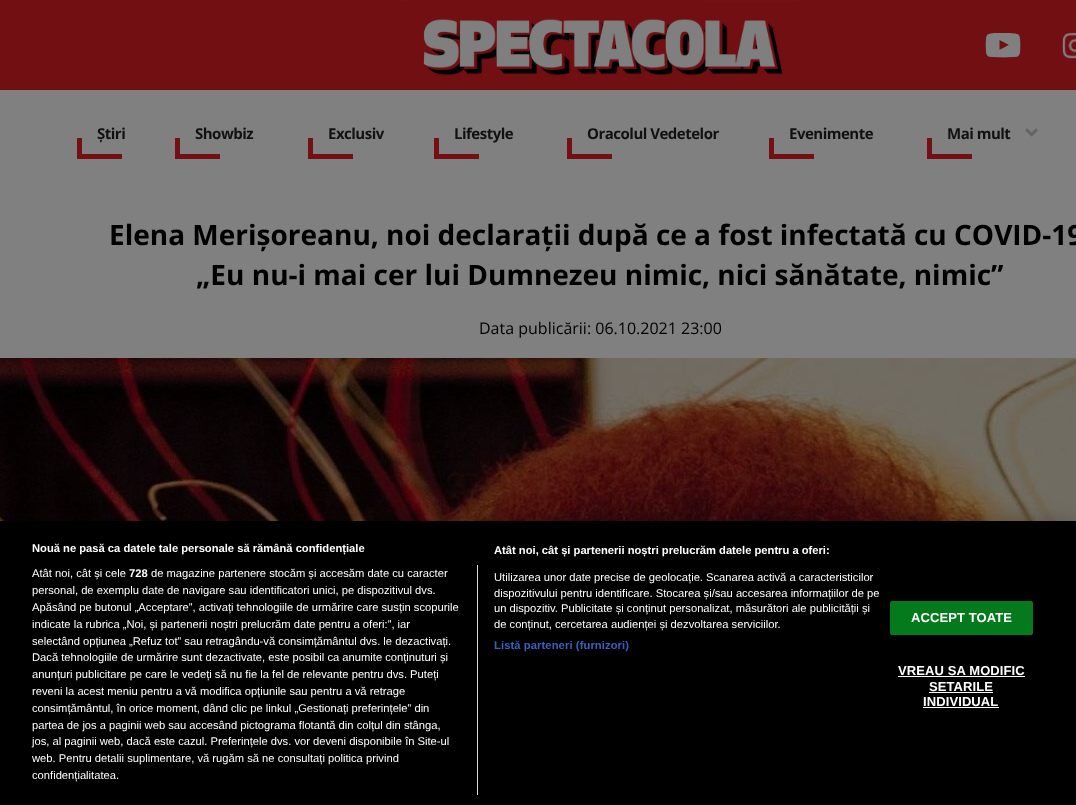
<!DOCTYPE html>
<meta charset="utf-8">
<style>body { margin: 0 } canvas { display: block }</style>
<canvas id="canvas" width="1076" height="805"></canvas>
<script type="module">
  const canvas = document.getElementById("canvas");
  const ctx = canvas.getContext("2d");
  ctx.miterLimit = 4;
  ctx.fontKerning = "normal";
  async function loadImage(src) {
    const img = new Image();
    img.src = src;
    await img.decode();
    return img;
  }

  ctx.fillStyle = "#808080";
  ctx.fillRect(0, 0, 1076, 805);
  ctx.fillStyle = "#720f13";
  ctx.fillRect(0, 0, 1076, 90);
  ctx.drawImage(await loadImage("img1.png"), 399, 0, 401, 75);
  ctx.drawImage(await loadImage("img2.png"), 985, 33, 36, 25);
  ctx.drawImage(await loadImage("img3.png"), 1062, 32, 14, 27);
  ctx.letterSpacing = "-0.5px";
  ctx.font = "bold 15px Open Sans";
  ctx.fillStyle = "#111111";
  ctx.fillText("Știri", 97, 139);
  ctx.fillStyle = "#721013";
  ctx.fillRect(77, 154, 45, 5);
  ctx.fillRect(77, 138, 5, 21);
  ctx.fillStyle = "#111111";
  ctx.fillText("Showbiz", 195, 139);
  ctx.fillStyle = "#721013";
  ctx.fillRect(175, 154, 45, 5);
  ctx.fillRect(175, 138, 5, 21);
  ctx.fillStyle = "#111111";
  ctx.fillText("Exclusiv", 328, 139);
  ctx.fillStyle = "#721013";
  ctx.fillRect(308, 154, 45, 5);
  ctx.fillRect(308, 138, 5, 21);
  ctx.fillStyle = "#111111";
  ctx.fillText("Lifestyle", 454, 139);
  ctx.fillStyle = "#721013";
  ctx.fillRect(434, 154, 45, 5);
  ctx.fillRect(434, 138, 5, 21);
  ctx.fillStyle = "#111111";
  ctx.fillText("Oracolul Vedetelor", 587, 139);
  ctx.fillStyle = "#721013";
  ctx.fillRect(567, 154, 45, 5);
  ctx.fillRect(567, 138, 5, 21);
  ctx.fillStyle = "#111111";
  ctx.fillText("Evenimente", 789, 139);
  ctx.fillStyle = "#721013";
  ctx.fillRect(769, 154, 45, 5);
  ctx.fillRect(769, 138, 5, 21);
  ctx.fillStyle = "#111111";
  ctx.fillText("Mai mult", 947, 139);
  ctx.drawImage(await loadImage("img4.png"), 1025, 128, 13, 9);
  ctx.fillStyle = "#721013";
  ctx.fillRect(927, 154, 45, 5);
  ctx.fillRect(927, 138, 5, 21);
  ctx.letterSpacing = "0px";
  ctx.font = "bold 28px Open Sans";
  ctx.fillStyle = "#000000";
  ctx.fillText("Elena Merișoreanu, noi declarații după ce a fost infectată cu COVID-19", 109, 245);
  ctx.fillText("„Eu nu-i mai cer lui Dumnezeu nimic, nici sănătate, nimic”", 196, 285);
  ctx.font = "16px Open Sans";
  ctx.fillText("Data publicării: 06.10.2021 23:00", 479, 334);
  ctx.drawImage(await loadImage("img5.png"), 0, 358, 1076, 163);
  ctx.fillStyle = "rgba(0, 0, 0, 0.2)";
  ctx.filter = "blur(9px)";
  ctx.beginPath();
  ctx.rect(0, 521, 1076, 284);
  ctx.fill();
  ctx.filter = "none";
  ctx.fillStyle = "#000000";
  ctx.fillRect(0, 521, 1076, 284);
  ctx.font = "bold 11.2px Liberation Sans";
  ctx.fillStyle = "#ffffff";
  ctx.fillText("Nouă ne pasă ca datele tale personale să rămână confidențiale", 32, 552);
  ctx.fillText("Atât noi, cât și partenerii noștri prelucrăm datele pentru a oferi:", 494, 554);
  ctx.font = "11.2px Liberation Sans";
  ctx.fillText("Utilizarea unor date precise de geolocație. Scanarea activă a caracteristicilor", 494, 581);
  ctx.fillText("dispozitivului pentru identificare. Stocarea și/sau accesarea informațiilor de pe", 494, 597);
  ctx.fillText("un dispozitiv. Publicitate și conținut personalizat, măsurători ale publicității și", 494, 612);
  ctx.fillText("de conținut, cercetarea audienței și dezvoltarea serviciilor.", 494, 628);
  ctx.letterSpacing = "0.1px";
  ctx.font = "bold 11.2px Liberation Sans";
  ctx.fillStyle = "#3860be";
  ctx.fillText("Listă parteneri (furnizori)", 494, 649);
  ctx.fillStyle = "#d8d8d8";
  ctx.fillRect(477, 565, 1, 230);
  ctx.letterSpacing = "0px";
  ctx.font = "11.2px Liberation Sans";
  ctx.fillStyle = "#ffffff";
  ctx.fillText("Atât noi, cât și cele", 32, 577);
  ctx.font = "bold 11.2px Liberation Sans";
  ctx.fillText("728", 129, 577);
  ctx.font = "11.2px Liberation Sans";
  ctx.fillText("de magazine partenere stocăm și accesăm date cu caracter", 151, 577);
  ctx.fillText("personal, de exemplu date de navigare sau identificatori unici, pe dispozitivul dvs.", 32, 594);
  ctx.fillText("Apăsând pe butonul „Acceptare”, activați tehnologiile de urmărire care susțin scopurile", 32, 611);
  ctx.fillText("indicate la rubrica „Noi, și partenerii noștri prelucrăm date pentru a oferi:”, iar", 32, 628);
  ctx.fillText("selectând opțiunea „Refuz tot” sau retragându-vă consimțământul dvs. le dezactivați.", 32, 645);
  ctx.fillText("Dacă tehnologiile de urmărire sunt dezactivate, este posibil ca anumite conținuturi și", 32, 661);
  ctx.fillText("anunțuri publicitare pe care le vedeți să nu fie la fel de relevante pentru dvs. Puteți", 32, 678);
  ctx.fillText("reveni la acest meniu pentru a vă modifica opțiunile sau pentru a vă retrage", 32, 695);
  ctx.fillText("consimțământul, în orice moment, dând clic pe linkul „Gestionați preferințele” din", 32, 712);
  ctx.fillText("partea de jos a paginii web sau accesând pictograma flotantă din colțul din stânga,", 32, 729);
  ctx.fillText("jos, al paginii web, dacă este cazul. Preferințele dvs. vor deveni disponibile în Site-ul", 32, 745);
  ctx.fillText("web. Pentru detalii suplimentare, vă rugăm să ne consultați politica privind", 32, 762);
  ctx.fillText("confidențialitatea.", 32, 779);
  ctx.fillStyle = "#057a1d";
  ctx.beginPath();
  ctx.roundRect(890.5, 601.5, 142, 33, 1.5);
  ctx.fill();
  ctx.strokeStyle = "#057a1d";
  ctx.stroke();
  ctx.letterSpacing = "0.1px";
  ctx.font = "bold 13px Liberation Sans";
  ctx.fillStyle = "#ffffff";
  ctx.fillText("ACCEPT TOATE", 911, 622);
  ctx.fillText("VREAU SA MODIFIC", 898, 675);
  ctx.fillRect(898, 676, 127, 1);
  ctx.fillText("SETARILE", 929, 691);
  ctx.fillRect(929, 692, 64, 1);
  ctx.fillText("INDIVIDUAL", 923, 706);
  ctx.fillRect(923, 707, 76, 1);
</script>
